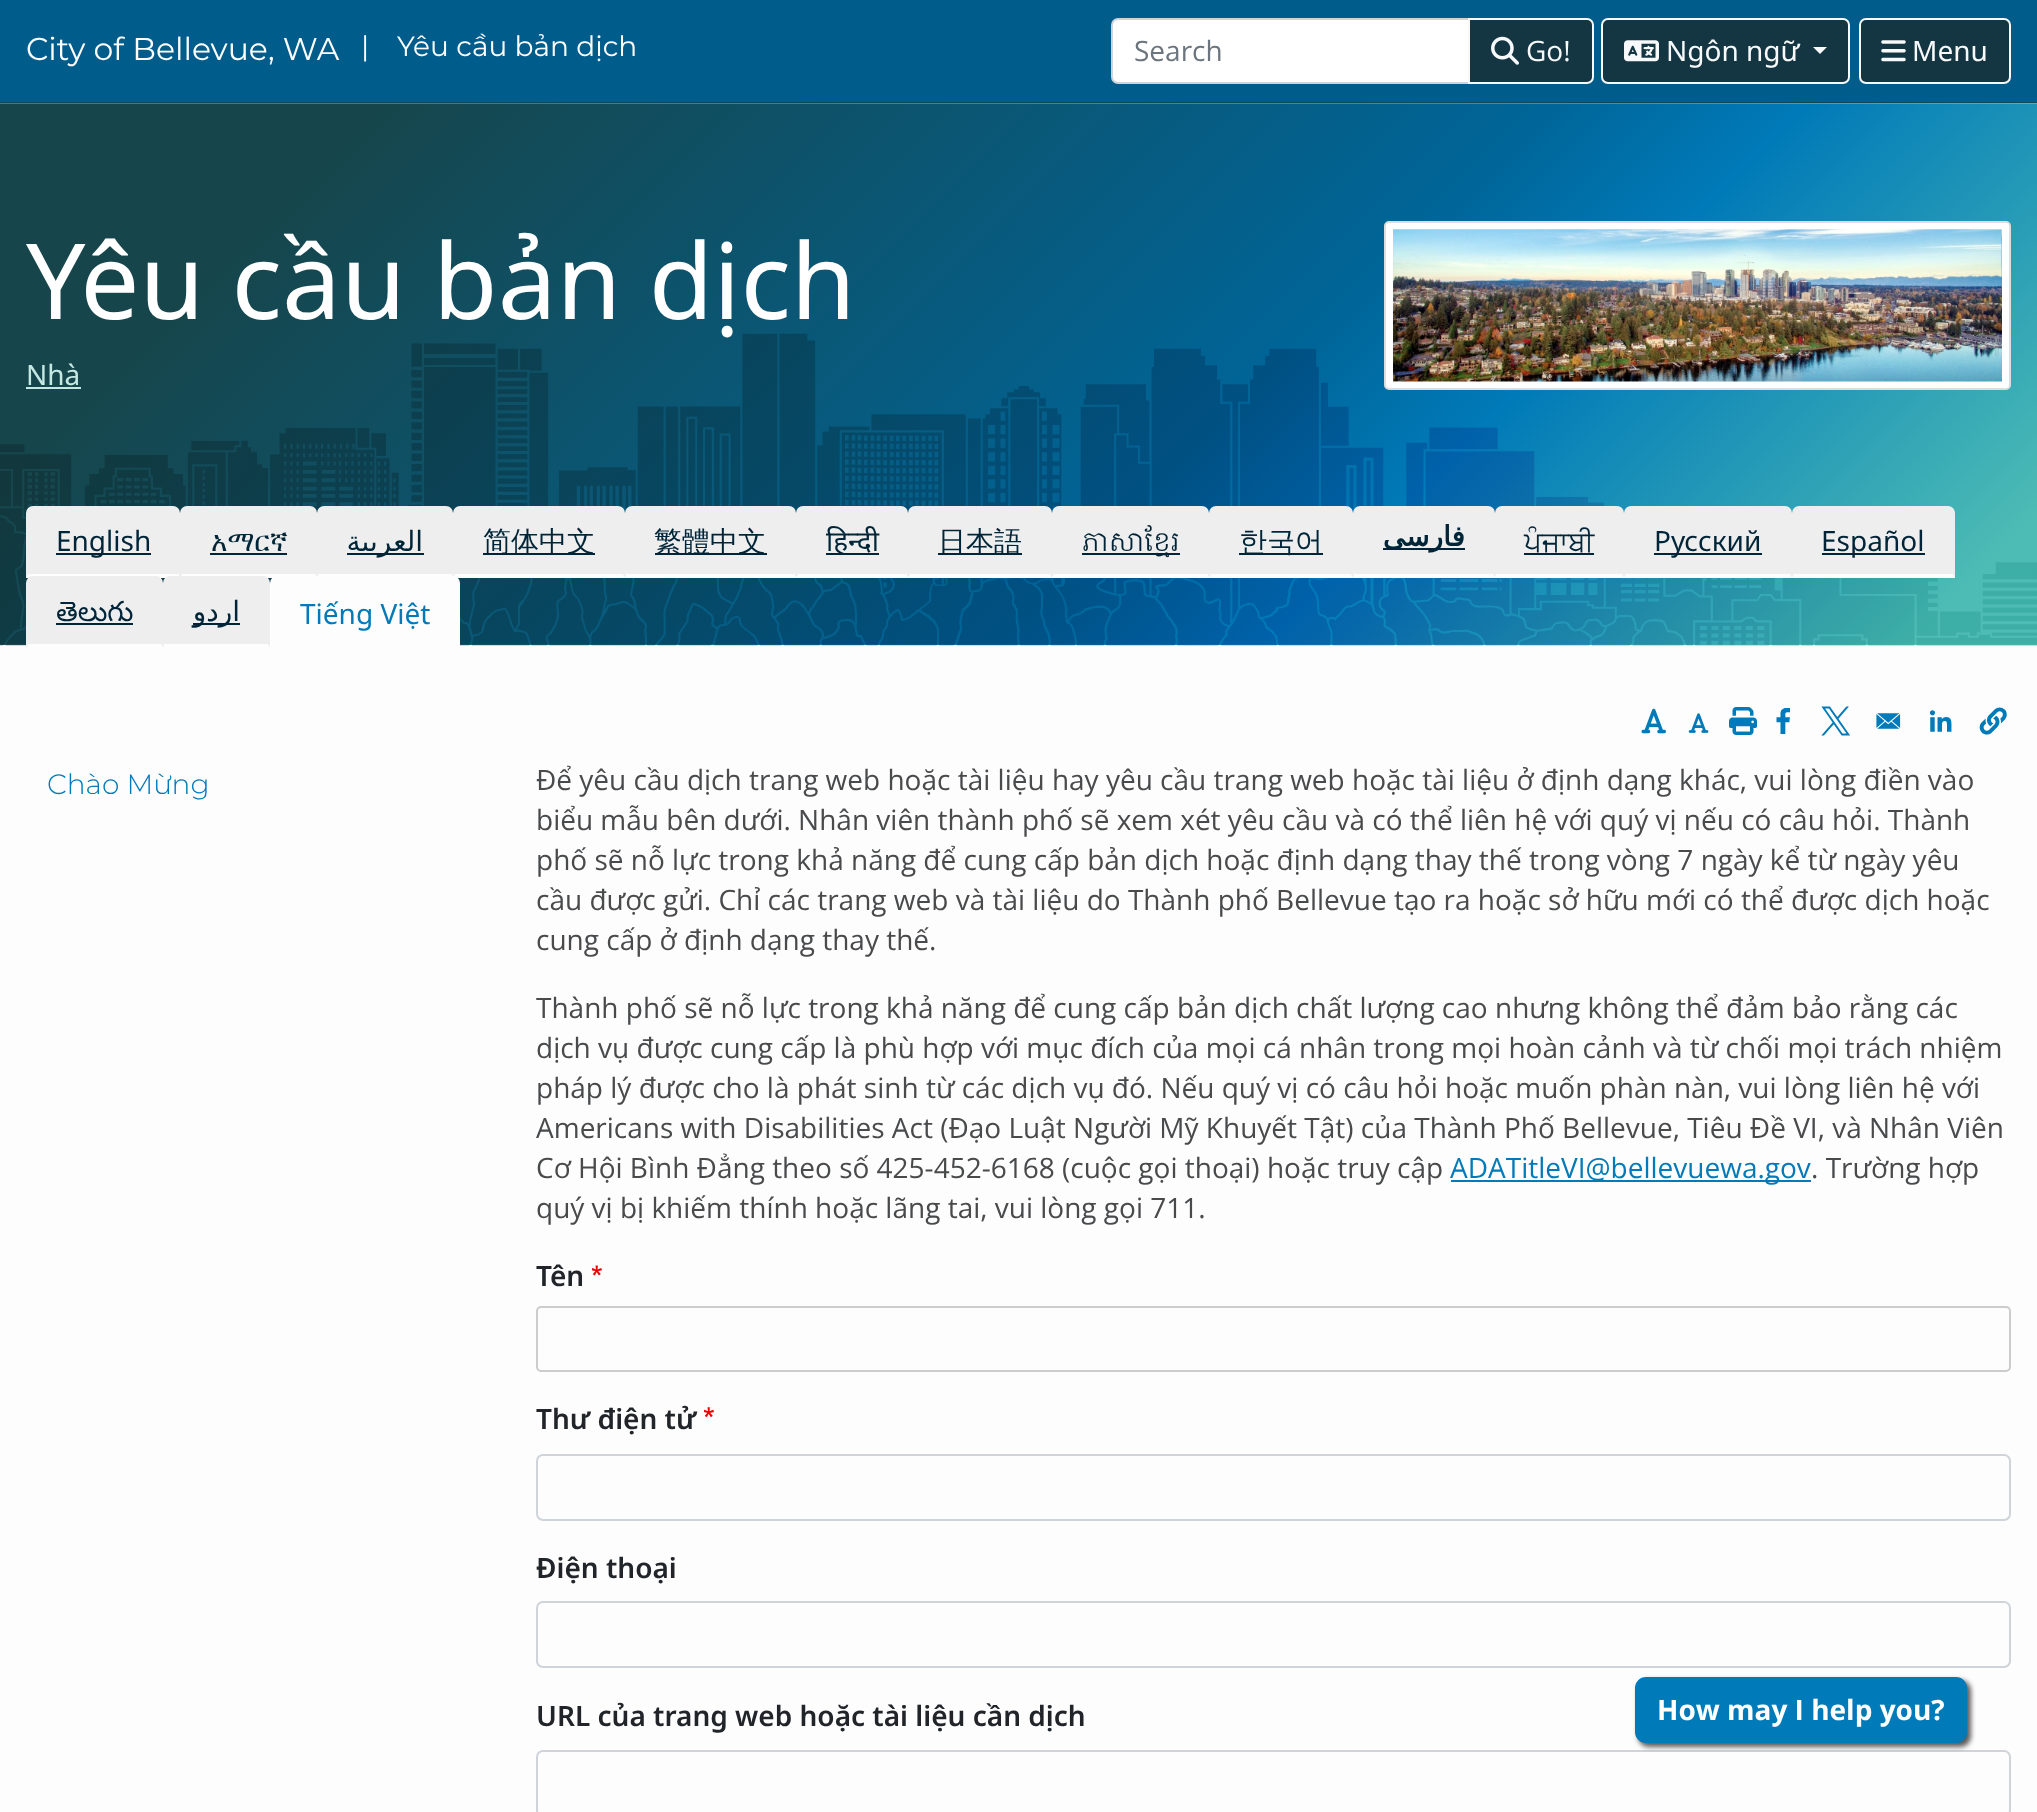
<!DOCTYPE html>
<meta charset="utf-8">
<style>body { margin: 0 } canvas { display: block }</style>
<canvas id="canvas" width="2037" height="1812"></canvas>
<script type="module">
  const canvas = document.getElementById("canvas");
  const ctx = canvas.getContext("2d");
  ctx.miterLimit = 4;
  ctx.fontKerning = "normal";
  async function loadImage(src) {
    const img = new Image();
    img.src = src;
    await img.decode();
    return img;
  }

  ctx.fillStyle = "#fdfdfd";
  ctx.fillRect(0, 0, 2037, 1812);
  ctx.fillStyle = "#005c8b";
  ctx.fillRect(0, 0, 2037, 102);
  ctx.fillStyle = "#0e4a55";
  ctx.fillRect(0, 102, 2037, 1);
  ctx.font = "31.5px Montserrat";
  ctx.fillStyle = "#ffffff";
  ctx.fillText("City of Bellevue, WA", 26, 60);
  ctx.font = "28px Montserrat";
  ctx.fillText("|", 361, 56);
  ctx.fillText("Yêu cầu bản dịch", 397, 56);
  ctx.beginPath();
  ctx.roundRect(1112, 19, 357, 64, [6, 0, 0, 6]);
  ctx.fill();
  ctx.strokeStyle = "#ced4da";
  ctx.lineWidth = 2;
  ctx.stroke();
  ctx.font = "28px Open Sans";
  ctx.fillStyle = "#6c757d";
  ctx.fillText("Search", 1134, 61);
  ctx.fillStyle = "#143642";
  ctx.beginPath();
  ctx.roundRect(1469, 19, 124, 64, [0, 6, 6, 0]);
  ctx.fill();
  ctx.strokeStyle = "#f8f9fa";
  ctx.stroke();
  ctx.drawImage(await loadImage("img1.png"), 1491, 36, 28, 29);
  ctx.fillStyle = "#f8f9fa";
  ctx.fillText("Go!", 1526, 61);
  ctx.fillStyle = "#143642";
  ctx.beginPath();
  ctx.roundRect(1602, 19, 247, 64, 6);
  ctx.fill();
  ctx.stroke();
  ctx.drawImage(await loadImage("img2.png"), 1624, 40, 35, 22);
  ctx.font = "28px Noto Sans";
  ctx.fillStyle = "#f8f9fa";
  ctx.fillText("Ngôn ngữ", 1666, 61);
  ctx.beginPath();
  ctx.moveTo(1813, 47);
  ctx.lineTo(1827, 47);
  ctx.lineTo(1820, 54);
  ctx.closePath();
  ctx.fill();
  ctx.fillStyle = "#143642";
  ctx.beginPath();
  ctx.roundRect(1860, 19, 150, 64, 6);
  ctx.fill();
  ctx.stroke();
  ctx.drawImage(await loadImage("img3.png"), 1881, 40, 25, 22);
  ctx.fillStyle = "#f8f9fa";
  ctx.fillText("Menu", 1912, 61);
  ctx.drawImage(await loadImage("img4.png"), 0, 103, 2037, 543);
  ctx.font = "105px Noto Sans";
  ctx.fillStyle = "#ffffff";
  ctx.fillText("Yêu cầu bản dịch", 26, 319);
  ctx.font = "28px Noto Sans";
  ctx.fillStyle = "#c5e8e3";
  ctx.fillText("Nhà", 26, 385);
  ctx.fillRect(26, 387, 55, 2);
  ctx.fillStyle = "#ffffff";
  ctx.beginPath();
  ctx.roundRect(1385, 222, 625, 167, 4);
  ctx.fill();
  ctx.strokeStyle = "#dddddd";
  ctx.stroke();
  ctx.drawImage(await loadImage("img5.png"), 1393, 229, 609, 153);
  ctx.beginPath();
  ctx.roundRect(537, 1751, 1473, 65, 6);
  ctx.strokeStyle = "#ced4da";
  ctx.stroke();
  ctx.fillStyle = "#5e5b5b";
  ctx.filter = "blur(2.5px)";
  ctx.beginPath();
  ctx.roundRect(1638, 1680, 333, 67, 11);
  ctx.fill();
  ctx.filter = "none";
  ctx.fillStyle = "#007ab8";
  ctx.beginPath();
  ctx.roundRect(1636, 1678, 330, 64, 10);
  ctx.fill();
  ctx.strokeStyle = "#007ab8";
  ctx.stroke();
  ctx.font = "bold 28px Open Sans";
  ctx.fillStyle = "#ffffff";
  ctx.fillText("How may I help you?", 1657, 1720);
  ctx.fillStyle = "#eeeeee";
  ctx.beginPath();
  ctx.roundRect(26, 506, 154, 72, [7, 7, 0, 0]);
  ctx.fill();
  ctx.fillStyle = "#002538";
  ctx.fillRect(56, 553, 95, 2);
  ctx.font = "28px Noto Sans";
  ctx.fillText("English", 56, 551);
  ctx.fillStyle = "#fdfdfd";
  ctx.beginPath();
  ctx.moveTo(180, 577);
  ctx.lineTo(180, 578);
  ctx.lineTo(26, 578);
  ctx.lineTo(28, 574);
  ctx.lineTo(178, 574);
  ctx.lineTo(178, 573);
  ctx.closePath();
  ctx.fill();
  ctx.fillStyle = "#eeeeee";
  ctx.beginPath();
  ctx.roundRect(180, 506, 137, 72, [7, 7, 0, 0]);
  ctx.fill();
  ctx.font = "28px FreeSerif";
  ctx.fillStyle = "#002538";
  ctx.fillText("አማርኛ", 211, 551);
  ctx.fillStyle = "#fdfdfd";
  ctx.beginPath();
  ctx.moveTo(317, 578);
  ctx.lineTo(315, 574);
  ctx.lineTo(182, 574);
  ctx.lineTo(180, 578);
  ctx.closePath();
  ctx.fill();
  ctx.fillStyle = "#002538";
  ctx.fillRect(210, 553, 77, 2);
  ctx.fillStyle = "#eeeeee";
  ctx.beginPath();
  ctx.roundRect(317, 506, 136, 72, [7, 7, 0, 0]);
  ctx.fill();
  ctx.fillStyle = "#002538";
  ctx.fillRect(347, 553, 77, 2);
  ctx.direction = "rtl";
  ctx.font = "28px DejaVu Sans";
  ctx.fillText("العربية", 423, 551);
  ctx.fillStyle = "#fdfdfd";
  ctx.beginPath();
  ctx.moveTo(317, 578);
  ctx.lineTo(318, 574);
  ctx.lineTo(452, 574);
  ctx.lineTo(453, 577);
  ctx.lineTo(453, 578);
  ctx.closePath();
  ctx.fill();
  ctx.fillStyle = "#eeeeee";
  ctx.beginPath();
  ctx.roundRect(453, 506, 172, 72, [7, 7, 0, 0]);
  ctx.fill();
  ctx.fillStyle = "#002538";
  ctx.fillRect(483, 553, 112, 2);
  ctx.direction = "ltr";
  ctx.font = "500 28px WenQuanYi Zen Hei";
  ctx.fillText("简体中文", 483, 551);
  ctx.fillStyle = "#fdfdfd";
  ctx.beginPath();
  ctx.moveTo(625, 578);
  ctx.lineTo(623, 574);
  ctx.lineTo(455, 574);
  ctx.lineTo(453, 578);
  ctx.closePath();
  ctx.fill();
  ctx.fillStyle = "#eeeeee";
  ctx.beginPath();
  ctx.roundRect(625, 506, 171, 72, [7, 7, 0, 0]);
  ctx.fill();
  ctx.fillStyle = "#002538";
  ctx.fillRect(655, 553, 112, 2);
  ctx.fillText("繁體中文", 654, 551);
  ctx.fillStyle = "#fdfdfd";
  ctx.beginPath();
  ctx.moveTo(625, 578);
  ctx.lineTo(626, 574);
  ctx.lineTo(794, 574);
  ctx.lineTo(794, 573);
  ctx.lineTo(796, 577);
  ctx.lineTo(796, 578);
  ctx.closePath();
  ctx.fill();
  ctx.fillStyle = "#eeeeee";
  ctx.beginPath();
  ctx.roundRect(796, 506, 112, 72, [7, 7, 0, 0]);
  ctx.fill();
  ctx.fillStyle = "#002538";
  ctx.fillRect(826, 553, 53, 2);
  ctx.font = "28px Noto Sans";
  ctx.fillText("हिन्दी", 826, 551);
  ctx.fillStyle = "#fdfdfd";
  ctx.beginPath();
  ctx.moveTo(908, 577);
  ctx.lineTo(908, 578);
  ctx.lineTo(796, 578);
  ctx.lineTo(798, 574);
  ctx.lineTo(906, 574);
  ctx.lineTo(906, 573);
  ctx.closePath();
  ctx.fill();
  ctx.fillStyle = "#eeeeee";
  ctx.beginPath();
  ctx.roundRect(908, 506, 144, 72, [7, 7, 0, 0]);
  ctx.fill();
  ctx.fillStyle = "#002538";
  ctx.fillRect(938, 553, 84, 2);
  ctx.font = "500 28px WenQuanYi Zen Hei";
  ctx.fillText("日本語", 938, 551);
  ctx.fillStyle = "#fdfdfd";
  ctx.beginPath();
  ctx.moveTo(1052, 578);
  ctx.lineTo(1050, 574);
  ctx.lineTo(910, 574);
  ctx.lineTo(908, 578);
  ctx.closePath();
  ctx.fill();
  ctx.fillStyle = "#eeeeee";
  ctx.beginPath();
  ctx.roundRect(1052, 506, 157, 72, [7, 7, 0, 0]);
  ctx.fill();
  ctx.fillStyle = "#002538";
  ctx.fillRect(1082, 553, 98, 2);
  ctx.font = "300 28px Hanuman";
  ctx.fillText("ភាសាខ្មែរ", 1082, 551);
  ctx.fillStyle = "#fdfdfd";
  ctx.beginPath();
  ctx.moveTo(1052, 578);
  ctx.lineTo(1054, 573);
  ctx.lineTo(1054, 574);
  ctx.lineTo(1208, 574);
  ctx.lineTo(1209, 577);
  ctx.lineTo(1209, 578);
  ctx.closePath();
  ctx.fill();
  ctx.fillStyle = "#eeeeee";
  ctx.beginPath();
  ctx.roundRect(1209, 506, 144, 72, [7, 7, 0, 0]);
  ctx.fill();
  ctx.fillStyle = "#002538";
  ctx.fillRect(1239, 553, 84, 2);
  ctx.font = "500 28px WenQuanYi Zen Hei";
  ctx.fillText("한국어", 1239, 551);
  ctx.fillStyle = "#fdfdfd";
  ctx.beginPath();
  ctx.moveTo(1353, 578);
  ctx.lineTo(1351, 574);
  ctx.lineTo(1211, 574);
  ctx.lineTo(1209, 578);
  ctx.closePath();
  ctx.fill();
  ctx.fillStyle = "#eeeeee";
  ctx.beginPath();
  ctx.roundRect(1353, 506, 142, 72, [7, 7, 0, 0]);
  ctx.fill();
  ctx.fillStyle = "#002538";
  ctx.fillRect(1383, 548, 82, 2);
  ctx.direction = "rtl";
  ctx.font = "bold 28px DejaVu Sans";
  ctx.fillText("فارسی", 1465, 546);
  ctx.fillStyle = "#fdfdfd";
  ctx.beginPath();
  ctx.moveTo(1353, 578);
  ctx.lineTo(1354, 574);
  ctx.lineTo(1493, 574);
  ctx.lineTo(1494, 576);
  ctx.lineTo(1494, 578);
  ctx.closePath();
  ctx.fill();
  ctx.fillStyle = "#eeeeee";
  ctx.beginPath();
  ctx.roundRect(1495, 506, 129, 72, [7, 7, 0, 0]);
  ctx.fill();
  ctx.direction = "ltr";
  ctx.font = "28px FreeSans";
  ctx.fillStyle = "#002538";
  ctx.fillText("ਪੰਜਾਬੀ", 1524, 551);
  ctx.fillStyle = "#fdfdfd";
  ctx.beginPath();
  ctx.moveTo(1624, 578);
  ctx.lineTo(1622, 574);
  ctx.lineTo(1496, 574);
  ctx.lineTo(1494, 578);
  ctx.closePath();
  ctx.fill();
  ctx.fillStyle = "#002538";
  ctx.fillRect(1524, 553, 70, 2);
  ctx.fillStyle = "#eeeeee";
  ctx.beginPath();
  ctx.roundRect(1624, 506, 168, 72, [7, 7, 0, 0]);
  ctx.fill();
  ctx.fillStyle = "#002538";
  ctx.fillRect(1654, 553, 108, 2);
  ctx.font = "28px Noto Sans";
  ctx.fillText("Русский", 1654, 551);
  ctx.fillStyle = "#fdfdfd";
  ctx.beginPath();
  ctx.moveTo(1792, 578);
  ctx.lineTo(1624, 578);
  ctx.lineTo(1626, 574);
  ctx.lineTo(1790, 574);
  ctx.closePath();
  ctx.fill();
  ctx.fillStyle = "#eeeeee";
  ctx.beginPath();
  ctx.roundRect(1792, 506, 163, 72, [7, 7, 0, 0]);
  ctx.fill();
  ctx.fillStyle = "#002538";
  ctx.fillRect(1822, 553, 103, 2);
  ctx.fillText("Español", 1821, 551);
  ctx.fillStyle = "#fdfdfd";
  ctx.beginPath();
  ctx.moveTo(1955, 578);
  ctx.lineTo(1953, 574);
  ctx.lineTo(1794, 574);
  ctx.lineTo(1792, 578);
  ctx.closePath();
  ctx.fill();
  ctx.fillStyle = "#eeeeee";
  ctx.beginPath();
  ctx.roundRect(26, 576, 137, 72, [7, 7, 0, 0]);
  ctx.fill();
  ctx.font = "28px Noto Sans Telugu";
  ctx.fillStyle = "#002538";
  ctx.fillText("తెలుగు", 56, 621);
  ctx.fillStyle = "#fdfdfd";
  ctx.beginPath();
  ctx.moveTo(163, 648);
  ctx.lineTo(161, 644);
  ctx.lineTo(28, 644);
  ctx.lineTo(26, 648);
  ctx.closePath();
  ctx.fill();
  ctx.fillStyle = "#002538";
  ctx.fillRect(56, 623, 77, 2);
  ctx.fillStyle = "#eeeeee";
  ctx.beginPath();
  ctx.roundRect(163, 576, 107, 72, [7, 7, 0, 0]);
  ctx.fill();
  ctx.fillStyle = "#002538";
  ctx.fillRect(193, 623, 47, 2);
  ctx.direction = "rtl";
  ctx.font = "28px DejaVu Sans";
  ctx.fillText("اردو", 240, 621);
  ctx.fillStyle = "#fdfdfd";
  ctx.beginPath();
  ctx.moveTo(270, 648);
  ctx.lineTo(163, 648);
  ctx.lineTo(164, 644);
  ctx.lineTo(268, 644);
  ctx.closePath();
  ctx.fill();
  ctx.beginPath();
  ctx.roundRect(270, 576, 190, 75, [7, 7, 0, 0]);
  ctx.fill();
  ctx.direction = "ltr";
  ctx.font = "28px Noto Sans";
  ctx.fillStyle = "#007ab8";
  ctx.fillText("Tiếng Việt", 300, 624);
  ctx.drawImage(await loadImage("img6.png"), 1641, 708, 25, 26);
  ctx.drawImage(await loadImage("img7.png"), 1688, 713, 21, 20);
  ctx.drawImage(await loadImage("img8.png"), 1729, 707, 28, 28);
  ctx.drawImage(await loadImage("img9.png"), 1776, 708, 14, 26);
  ctx.drawImage(await loadImage("img10.png"), 1821, 706, 29, 30);
  ctx.drawImage(await loadImage("img11.png"), 1876, 713, 25, 16);
  ctx.drawImage(await loadImage("img12.png"), 1929, 710, 23, 22);
  ctx.drawImage(await loadImage("img13.png"), 1979, 707, 28, 28);
  ctx.font = "300 28px Montserrat";
  ctx.fillText("Chào Mừng", 47, 794);
  ctx.font = "28px Open Sans";
  ctx.fillStyle = "#494a4c";
  ctx.fillText("Để yêu cầu dịch trang web hoặc tài liệu hay yêu cầu trang web hoặc tài liệu ở định dạng khác, vui lòng điền vào", 536, 790);
  ctx.fillText("biểu mẫu bên dưới. Nhân viên thành phố sẽ xem xét yêu cầu và có thể liên hệ với quý vị nếu có câu hỏi. Thành", 536, 830);
  ctx.fillText("phố sẽ nỗ lực trong khả năng để cung cấp bản dịch hoặc định dạng thay thế trong vòng 7 ngày kể từ ngày yêu", 536, 870);
  ctx.fillText("cầu được gửi. Chỉ các trang web và tài liệu do Thành phố Bellevue tạo ra hoặc sở hữu mới có thể được dịch hoặc", 536, 910);
  ctx.fillText("cung cấp ở định dạng thay thế.", 536, 950);
  ctx.fillText("Thành phố sẽ nỗ lực trong khả năng để cung cấp bản dịch chất lượng cao nhưng không thể đảm bảo rằng các", 536, 1018);
  ctx.fillText("dịch vụ được cung cấp là phù hợp với mục đích của mọi cá nhân trong mọi hoàn cảnh và từ chối mọi trách nhiệm", 536, 1058);
  ctx.fillText("pháp lý được cho là phát sinh từ các dịch vụ đó. Nếu quý vị có câu hỏi hoặc muốn phàn nàn, vui lòng liên hệ với", 536, 1098);
  ctx.fillText("Americans with Disabilities Act (Đạo Luật Người Mỹ Khuyết Tật) của Thành Phố Bellevue, Tiêu Đề VI, và Nhân Viên", 536, 1138);
  ctx.fillText("Cơ Hội Bình Đẳng theo số 425-452-6168 (cuộc gọi thoại) hoặc truy cập", 536, 1178);
  ctx.fillStyle = "#007ab8";
  ctx.fillRect(1451, 1180, 360, 2);
  ctx.fillText("ADATitleVI@bellevuewa.gov", 1450, 1178);
  ctx.fillStyle = "#494a4c";
  ctx.fillText(". Trường hợp", 1811, 1178);
  ctx.fillText("quý vị bị khiếm thính hoặc lãng tai, vui lòng gọi 711.", 536, 1218);
  ctx.font = "600 28px Noto Sans";
  ctx.fillStyle = "#212529";
  ctx.fillText("Tên", 536, 1286);
  ctx.drawImage(await loadImage("img14.png"), 592, 1265, 10, 11);
  ctx.beginPath();
  ctx.roundRect(537, 1307, 1473, 64, 4);
  ctx.strokeStyle = "#cccccc";
  ctx.stroke();
  ctx.fillText("Thư điện tử", 536, 1429);
  ctx.drawImage(await loadImage("img15.png"), 704, 1407, 10, 11);
  ctx.beginPath();
  ctx.roundRect(537, 1455, 1473, 65, 6);
  ctx.strokeStyle = "#ced4da";
  ctx.stroke();
  ctx.fillText("Điện thoại", 536, 1578);
  ctx.beginPath();
  ctx.roundRect(537, 1602, 1473, 65, 6);
  ctx.stroke();
  ctx.fillText("URL của trang web hoặc tài liệu cần dịch", 536, 1726);
</script>
